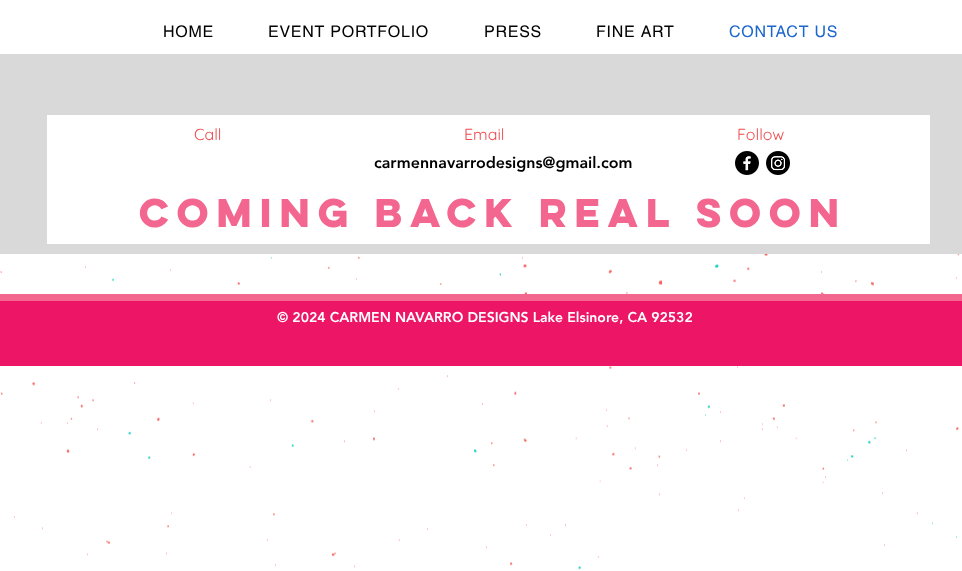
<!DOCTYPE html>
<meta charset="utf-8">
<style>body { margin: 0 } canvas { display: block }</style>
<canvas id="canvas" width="962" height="571"></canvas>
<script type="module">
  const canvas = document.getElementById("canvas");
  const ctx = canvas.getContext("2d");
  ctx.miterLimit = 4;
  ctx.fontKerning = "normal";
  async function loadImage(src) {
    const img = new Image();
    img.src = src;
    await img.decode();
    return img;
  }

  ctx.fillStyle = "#ffffff";
  ctx.fillRect(0, 0, 962, 571);
  ctx.letterSpacing = "0.75px";
  ctx.font = "16px helvetica";
  ctx.fillStyle = "#000000";
  ctx.fillText("HOME", 163, 37);
  ctx.fillText("EVENT PORTFOLIO", 268, 37);
  ctx.fillText("PRESS", 484, 37);
  ctx.fillText("FINE ART", 596, 37);
  ctx.fillStyle = "#1d67cd";
  ctx.fillText("CONTACT US", 729, 37);
  ctx.fillStyle = "#d9d9d9";
  ctx.fillRect(0, 54, 962, 200);
  ctx.fillStyle = "#ffffff";
  ctx.fillRect(47, 115, 883, 129);
  ctx.letterSpacing = "0px";
  ctx.font = "16px Quicksand";
  ctx.fillStyle = "#ef4b4d";
  ctx.fillText("Call", 194, 140);
  ctx.fillText("Email", 464, 140);
  ctx.fillText("Follow", 737, 140);
  ctx.font = "900 16px 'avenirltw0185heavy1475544'";
  ctx.fillStyle = "#000000";
  ctx.fillText("carmennavarrodesigns@gmail.com", 374, 168);
  ctx.drawImage(await loadImage("img1.png"), 735, 151, 24, 24);
  ctx.drawImage(await loadImage("img2.png"), 766, 151, 24, 24);
  ctx.font = "bold 36px 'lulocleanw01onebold'";
  ctx.fillStyle = "#f2668f";
  ctx.fillText("COMING BACK REAL SOON", 139, 227);
  ctx.drawImage(await loadImage("img3.png"), 0, 254, 960, 316);
  ctx.fillStyle = "#ed1566";
  ctx.fillRect(0, 301, 962, 65);
  ctx.fillStyle = "#f2668f";
  ctx.fillRect(0, 294, 962, 7);
  ctx.font = "900 14px 'avenirltw0185heavy1475544'";
  ctx.fillStyle = "#ffffff";
  ctx.fillText("© 2024 CARMEN NAVARRO DESIGNS Lake Elsinore, CA 92532", 277, 322);
</script>
